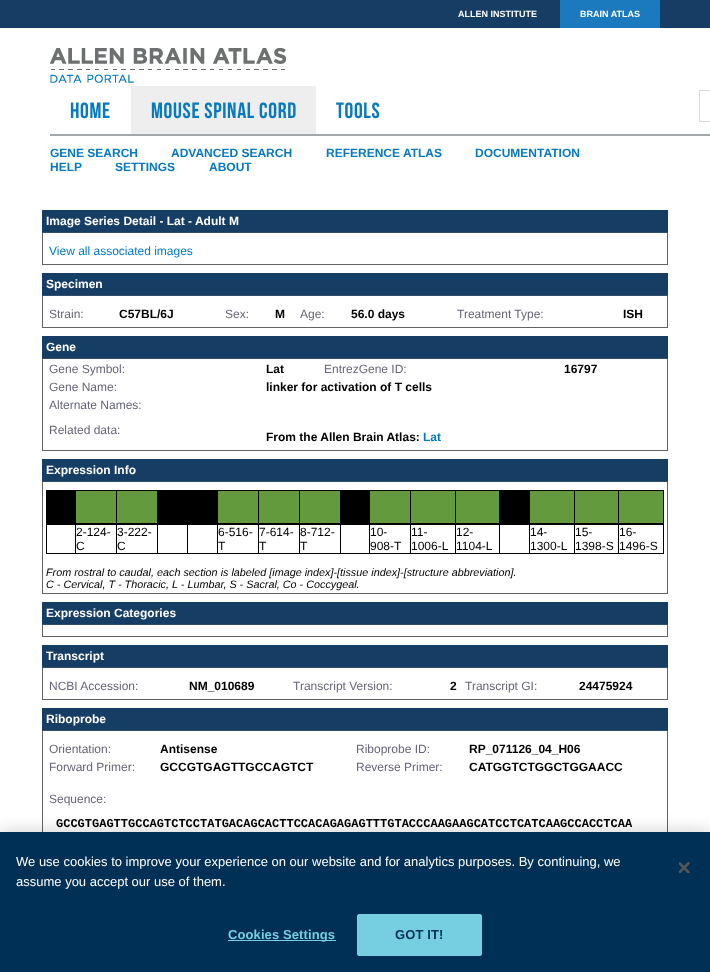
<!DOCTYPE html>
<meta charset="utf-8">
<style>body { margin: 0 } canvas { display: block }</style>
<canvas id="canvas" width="710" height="972"></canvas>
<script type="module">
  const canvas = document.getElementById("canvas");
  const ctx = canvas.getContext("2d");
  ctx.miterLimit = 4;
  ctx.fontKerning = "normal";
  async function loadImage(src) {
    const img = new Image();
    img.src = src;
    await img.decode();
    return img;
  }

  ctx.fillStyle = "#ffffff";
  ctx.fillRect(0, 0, 710, 972);
  ctx.fillStyle = "#163e65";
  ctx.fillRect(0, 0, 710, 28);
  ctx.font = "bold 9px Liberation Sans";
  ctx.fillStyle = "#ffffff";
  ctx.fillText("ALLEN INSTITUTE", 458, 17);
  ctx.fillStyle = "#1b7abd";
  ctx.fillRect(560, 0, 100, 28);
  ctx.fillStyle = "#ffffff";
  ctx.fillText("BRAIN ATLAS", 580, 17);
  ctx.fillStyle = "#a5a8ab";
  ctx.fillRect(50, 134, 660, 2);
  ctx.drawImage(await loadImage("img1.png"), 50, 48, 236, 35);
  ctx.letterSpacing = "0.7px";
  ctx.font = "22px Bebas Neue";
  ctx.fillStyle = "#0779be";
  ctx.fillText("HOME", 70, 118);
  ctx.fillStyle = "#eeeeee";
  ctx.fillRect(131, 86, 185, 48);
  ctx.fillStyle = "#0779be";
  ctx.fillText("Mouse Spinal Cord", 151, 118);
  ctx.fillText("TOOLS", 336, 118);
  ctx.strokeStyle = "#dad9d3";
  ctx.strokeRect(699.5, 90.5, 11, 31);
  ctx.letterSpacing = "0px";
  ctx.font = "bold 12px Liberation Sans";
  ctx.fillText("GENE SEARCH", 50, 157);
  ctx.fillText("ADVANCED SEARCH", 171, 157);
  ctx.fillText("REFERENCE ATLAS", 326, 157);
  ctx.fillText("DOCUMENTATION", 475, 157);
  ctx.fillText("HELP", 50, 171);
  ctx.fillText("SETTINGS", 115, 171);
  ctx.fillText("ABOUT", 209, 171);
  ctx.strokeStyle = "#636363";
  ctx.strokeRect(42.5, 210.5, 625, 54);
  ctx.fillStyle = "#163e65";
  ctx.fillRect(42, 210, 626, 22);
  ctx.fillStyle = "#31506c";
  ctx.fillRect(42, 232, 626, 1);
  ctx.fillStyle = "#ffffff";
  ctx.fillText("Image Series Detail - Lat - Adult M", 46, 225);
  ctx.font = "12px Liberation Sans";
  ctx.fillStyle = "#0079c0";
  ctx.fillText("View all associated images", 49, 255);
  ctx.strokeRect(42.5, 273.5, 625, 54);
  ctx.fillStyle = "#163e65";
  ctx.fillRect(42, 273, 626, 22);
  ctx.fillStyle = "#31506c";
  ctx.fillRect(42, 295, 626, 1);
  ctx.font = "bold 12px Liberation Sans";
  ctx.fillStyle = "#ffffff";
  ctx.fillText("Specimen", 46, 288);
  ctx.font = "12px Liberation Sans";
  ctx.fillStyle = "#666677";
  ctx.fillText("Strain:", 49, 318);
  ctx.font = "bold 12px Liberation Sans";
  ctx.fillStyle = "#000000";
  ctx.fillText("C57BL/6J", 119, 318);
  ctx.font = "12px Liberation Sans";
  ctx.fillStyle = "#666677";
  ctx.fillText("Sex:", 225, 318);
  ctx.font = "bold 12px Liberation Sans";
  ctx.fillStyle = "#000000";
  ctx.fillText("M", 275, 318);
  ctx.font = "12px Liberation Sans";
  ctx.fillStyle = "#666677";
  ctx.fillText("Age:", 300, 318);
  ctx.font = "bold 12px Liberation Sans";
  ctx.fillStyle = "#000000";
  ctx.fillText("56.0 days", 351, 318);
  ctx.font = "12px Liberation Sans";
  ctx.fillStyle = "#666677";
  ctx.fillText("Treatment Type:", 457, 318);
  ctx.font = "bold 12px Liberation Sans";
  ctx.fillStyle = "#000000";
  ctx.fillText("ISH", 623, 318);
  ctx.strokeRect(42.5, 336.5, 625, 114);
  ctx.fillStyle = "#163e65";
  ctx.fillRect(42, 336, 626, 22);
  ctx.fillStyle = "#31506c";
  ctx.fillRect(42, 358, 626, 1);
  ctx.fillStyle = "#ffffff";
  ctx.fillText("Gene", 46, 351);
  ctx.font = "12px Liberation Sans";
  ctx.fillStyle = "#666677";
  ctx.fillText("Gene Symbol:", 49, 373);
  ctx.font = "bold 12px Liberation Sans";
  ctx.fillStyle = "#000000";
  ctx.fillText("Lat", 266, 373);
  ctx.font = "12px Liberation Sans";
  ctx.fillStyle = "#666677";
  ctx.fillText("EntrezGene ID:", 324, 373);
  ctx.font = "bold 12px Liberation Sans";
  ctx.fillStyle = "#000000";
  ctx.fillText("16797", 564, 373);
  ctx.font = "12px Liberation Sans";
  ctx.fillStyle = "#666677";
  ctx.fillText("Gene Name:", 49, 391);
  ctx.font = "bold 12px Liberation Sans";
  ctx.fillStyle = "#000000";
  ctx.fillText("linker for activation of T cells", 266, 391);
  ctx.font = "12px Liberation Sans";
  ctx.fillStyle = "#666677";
  ctx.fillText("Alternate Names:", 49, 409);
  ctx.fillText("Related data:", 49, 434);
  ctx.font = "bold 12px Liberation Sans";
  ctx.fillStyle = "#000000";
  ctx.fillText("From the Allen Brain Atlas:", 266, 441);
  ctx.fillStyle = "#0079c0";
  ctx.fillText("Lat", 423, 441);
  ctx.strokeRect(42.5, 459.5, 625, 134);
  ctx.fillStyle = "#163e65";
  ctx.fillRect(42, 459, 626, 22);
  ctx.fillStyle = "#31506c";
  ctx.fillRect(42, 481, 626, 1);
  ctx.fillStyle = "#ffffff";
  ctx.fillText("Expression Info", 46, 474);
  ctx.fillStyle = "#000000";
  ctx.fillRect(46, 490, 1, 64);
  ctx.fillRect(47, 490, 617, 1);
  ctx.fillRect(75, 490, 1, 34);
  ctx.fillRect(47, 523, 29, 2);
  ctx.fillRect(47, 491, 28, 32);
  ctx.fillRect(116, 490, 1, 34);
  ctx.fillRect(76, 523, 41, 2);
  ctx.fillStyle = "#639a3d";
  ctx.fillRect(76, 491, 40, 32);
  ctx.fillStyle = "#000000";
  ctx.fillRect(157, 490, 1, 34);
  ctx.fillRect(117, 523, 41, 2);
  ctx.fillStyle = "#639a3d";
  ctx.fillRect(117, 491, 40, 32);
  ctx.fillStyle = "#000000";
  ctx.fillRect(187, 490, 1, 34);
  ctx.fillRect(158, 523, 30, 2);
  ctx.fillRect(158, 491, 29, 32);
  ctx.fillRect(217, 490, 1, 34);
  ctx.fillRect(188, 523, 30, 2);
  ctx.fillRect(188, 491, 29, 32);
  ctx.fillRect(258, 490, 1, 34);
  ctx.fillRect(218, 523, 41, 2);
  ctx.fillStyle = "#639a3d";
  ctx.fillRect(218, 491, 40, 32);
  ctx.fillStyle = "#000000";
  ctx.fillRect(299, 490, 1, 34);
  ctx.fillRect(259, 523, 41, 2);
  ctx.fillStyle = "#639a3d";
  ctx.fillRect(259, 491, 40, 32);
  ctx.fillStyle = "#000000";
  ctx.fillRect(340, 490, 1, 34);
  ctx.fillRect(300, 523, 41, 2);
  ctx.fillStyle = "#639a3d";
  ctx.fillRect(300, 491, 40, 32);
  ctx.fillStyle = "#000000";
  ctx.fillRect(369, 490, 1, 34);
  ctx.fillRect(341, 523, 29, 2);
  ctx.fillRect(341, 491, 28, 32);
  ctx.fillRect(410, 490, 1, 34);
  ctx.fillRect(370, 523, 41, 2);
  ctx.fillStyle = "#639a3d";
  ctx.fillRect(370, 491, 40, 32);
  ctx.fillStyle = "#000000";
  ctx.fillRect(455, 490, 1, 34);
  ctx.fillRect(411, 523, 45, 2);
  ctx.fillStyle = "#639a3d";
  ctx.fillRect(411, 491, 44, 32);
  ctx.fillStyle = "#000000";
  ctx.fillRect(499, 490, 1, 34);
  ctx.fillRect(456, 523, 44, 2);
  ctx.fillStyle = "#639a3d";
  ctx.fillRect(456, 491, 43, 32);
  ctx.fillStyle = "#000000";
  ctx.fillRect(529, 490, 1, 34);
  ctx.fillRect(500, 523, 30, 2);
  ctx.fillRect(500, 491, 29, 32);
  ctx.fillRect(574, 490, 1, 34);
  ctx.fillRect(530, 523, 45, 2);
  ctx.fillStyle = "#639a3d";
  ctx.fillRect(530, 491, 44, 32);
  ctx.fillStyle = "#000000";
  ctx.fillRect(618, 490, 1, 34);
  ctx.fillRect(575, 523, 44, 2);
  ctx.fillStyle = "#639a3d";
  ctx.fillRect(575, 491, 43, 32);
  ctx.fillStyle = "#000000";
  ctx.fillRect(663, 490, 1, 34);
  ctx.fillRect(619, 523, 45, 2);
  ctx.fillStyle = "#639a3d";
  ctx.fillRect(619, 491, 44, 32);
  ctx.fillStyle = "#000000";
  ctx.fillRect(75, 524, 1, 30);
  ctx.fillRect(47, 553, 29, 1);
  ctx.fillRect(116, 524, 1, 30);
  ctx.fillRect(76, 553, 41, 1);
  ctx.font = "12px Liberation Sans";
  ctx.fillText("2-124-", 76, 536);
  ctx.fillText("C", 76, 550);
  ctx.fillRect(157, 524, 1, 30);
  ctx.fillRect(117, 553, 41, 1);
  ctx.fillText("3-222-", 117, 536);
  ctx.fillText("C", 117, 550);
  ctx.fillRect(187, 524, 1, 30);
  ctx.fillRect(158, 553, 30, 1);
  ctx.fillRect(217, 524, 1, 30);
  ctx.fillRect(188, 553, 30, 1);
  ctx.fillRect(258, 524, 1, 30);
  ctx.fillRect(218, 553, 41, 1);
  ctx.fillText("6-516-", 218, 536);
  ctx.fillText("T", 218, 550);
  ctx.fillRect(299, 524, 1, 30);
  ctx.fillRect(259, 553, 41, 1);
  ctx.fillText("7-614-", 259, 536);
  ctx.fillText("T", 259, 550);
  ctx.fillRect(340, 524, 1, 30);
  ctx.fillRect(300, 553, 41, 1);
  ctx.fillText("8-712-", 300, 536);
  ctx.fillText("T", 300, 550);
  ctx.fillRect(369, 524, 1, 30);
  ctx.fillRect(341, 553, 29, 1);
  ctx.fillRect(410, 524, 1, 30);
  ctx.fillRect(370, 553, 41, 1);
  ctx.fillText("10-", 370, 536);
  ctx.fillText("908-T", 370, 550);
  ctx.fillRect(455, 524, 1, 30);
  ctx.fillRect(411, 553, 45, 1);
  ctx.fillText("11-", 411, 536);
  ctx.fillText("1006-L", 411, 550);
  ctx.fillRect(499, 524, 1, 30);
  ctx.fillRect(456, 553, 44, 1);
  ctx.fillText("12-", 456, 536);
  ctx.fillText("1104-L", 456, 550);
  ctx.fillRect(529, 524, 1, 30);
  ctx.fillRect(500, 553, 30, 1);
  ctx.fillRect(574, 524, 1, 30);
  ctx.fillRect(530, 553, 45, 1);
  ctx.fillText("14-", 530, 536);
  ctx.fillText("1300-L", 530, 550);
  ctx.fillRect(618, 524, 1, 30);
  ctx.fillRect(575, 553, 44, 1);
  ctx.fillText("15-", 575, 536);
  ctx.fillText("1398-S", 575, 550);
  ctx.fillRect(663, 524, 1, 30);
  ctx.fillRect(619, 553, 45, 1);
  ctx.fillText("16-", 619, 536);
  ctx.fillText("1496-S", 619, 550);
  ctx.font = "italic 10.8px Liberation Sans";
  ctx.fillText("From rostral to caudal, each section is labeled [image index]-[tissue index]-[structure abbreviation].", 46, 576);
  ctx.fillText("C - Cervical, T - Thoracic, L - Lumbar, S - Sacral, Co - Coccygeal.", 46, 588);
  ctx.strokeRect(42.5, 602.5, 625, 34);
  ctx.fillStyle = "#163e65";
  ctx.fillRect(42, 602, 626, 22);
  ctx.fillStyle = "#31506c";
  ctx.fillRect(42, 624, 626, 1);
  ctx.font = "bold 12px Liberation Sans";
  ctx.fillStyle = "#ffffff";
  ctx.fillText("Expression Categories", 46, 617);
  ctx.strokeRect(42.5, 645.5, 625, 54);
  ctx.fillStyle = "#163e65";
  ctx.fillRect(42, 645, 626, 22);
  ctx.fillStyle = "#31506c";
  ctx.fillRect(42, 667, 626, 1);
  ctx.fillStyle = "#ffffff";
  ctx.fillText("Transcript", 46, 660);
  ctx.font = "12px Liberation Sans";
  ctx.fillStyle = "#666677";
  ctx.fillText("NCBI Accession:", 49, 690);
  ctx.font = "bold 12px Liberation Sans";
  ctx.fillStyle = "#000000";
  ctx.fillText("NM_010689", 189, 690);
  ctx.font = "12px Liberation Sans";
  ctx.fillStyle = "#666677";
  ctx.fillText("Transcript Version:", 293, 690);
  ctx.font = "bold 12px Liberation Sans";
  ctx.fillStyle = "#000000";
  ctx.fillText("2", 450, 690);
  ctx.font = "12px Liberation Sans";
  ctx.fillStyle = "#666677";
  ctx.fillText("Transcript GI:", 465, 690);
  ctx.font = "bold 12px Liberation Sans";
  ctx.fillStyle = "#000000";
  ctx.fillText("24475924", 579, 690);
  ctx.strokeRect(42.5, 708.5, 625, 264);
  ctx.fillStyle = "#163e65";
  ctx.fillRect(42, 708, 626, 22);
  ctx.fillStyle = "#31506c";
  ctx.fillRect(42, 730, 626, 1);
  ctx.fillStyle = "#ffffff";
  ctx.fillText("Riboprobe", 46, 723);
  ctx.font = "12px Liberation Sans";
  ctx.fillStyle = "#666677";
  ctx.fillText("Orientation:", 49, 753);
  ctx.font = "bold 12px Liberation Sans";
  ctx.fillStyle = "#000000";
  ctx.fillText("Antisense", 160, 753);
  ctx.font = "12px Liberation Sans";
  ctx.fillStyle = "#666677";
  ctx.fillText("Riboprobe ID:", 356, 753);
  ctx.font = "bold 12px Liberation Sans";
  ctx.fillStyle = "#000000";
  ctx.fillText("RP_071126_04_H06", 469, 753);
  ctx.font = "12px Liberation Sans";
  ctx.fillStyle = "#666677";
  ctx.fillText("Forward Primer:", 49, 771);
  ctx.font = "bold 12px Liberation Sans";
  ctx.fillStyle = "#000000";
  ctx.fillText("GCCGTGAGTTGCCAGTCT", 160, 771);
  ctx.font = "12px Liberation Sans";
  ctx.fillStyle = "#666677";
  ctx.fillText("Reverse Primer:", 356, 771);
  ctx.font = "bold 12px Liberation Sans";
  ctx.fillStyle = "#000000";
  ctx.fillText("CATGGTCTGGCTGGAACC", 469, 771);
  ctx.font = "12px Liberation Sans";
  ctx.fillStyle = "#666677";
  ctx.fillText("Sequence:", 49, 803);
  ctx.font = "bold 12px Liberation Mono";
  ctx.fillStyle = "#000000";
  ctx.fillText("GCCGTGAGTTGCCAGTCTCCTATGACAGCACTTCCACAGAGAGTTTGTACCCAAGAAGCATCCTCATCAAGCCACCTCAA", 56, 827);
  ctx.fillStyle = "rgba(0, 0, 0, 0.2)";
  ctx.filter = "blur(9px)";
  ctx.beginPath();
  ctx.rect(0, 832, 710, 140);
  ctx.fill();
  ctx.filter = "none";
  ctx.fillStyle = "#003056";
  ctx.fillRect(0, 832, 710, 140);
  ctx.font = "13px Liberation Sans";
  ctx.fillStyle = "#ffffff";
  ctx.fillText("We use cookies to improve your experience on our website and for analytics purposes. By continuing, we", 16, 866);
  ctx.fillText("assume you accept our use of them.", 16, 886);
  ctx.drawImage(await loadImage("img2.png"), 679, 862, 11, 11);
  ctx.fillStyle = "#76cfe0";
  ctx.fillRect(228, 940, 108, 1);
  ctx.letterSpacing = "0.1px";
  ctx.font = "bold 13px Liberation Sans";
  ctx.fillText("Cookies Settings", 228, 939);
  ctx.beginPath();
  ctx.roundRect(357.5, 914.5, 124, 41, 1.5);
  ctx.fill();
  ctx.strokeStyle = "#76cfe0";
  ctx.stroke();
  ctx.fillStyle = "#003056";
  ctx.fillText("GOT IT!", 395, 939);
</script>
